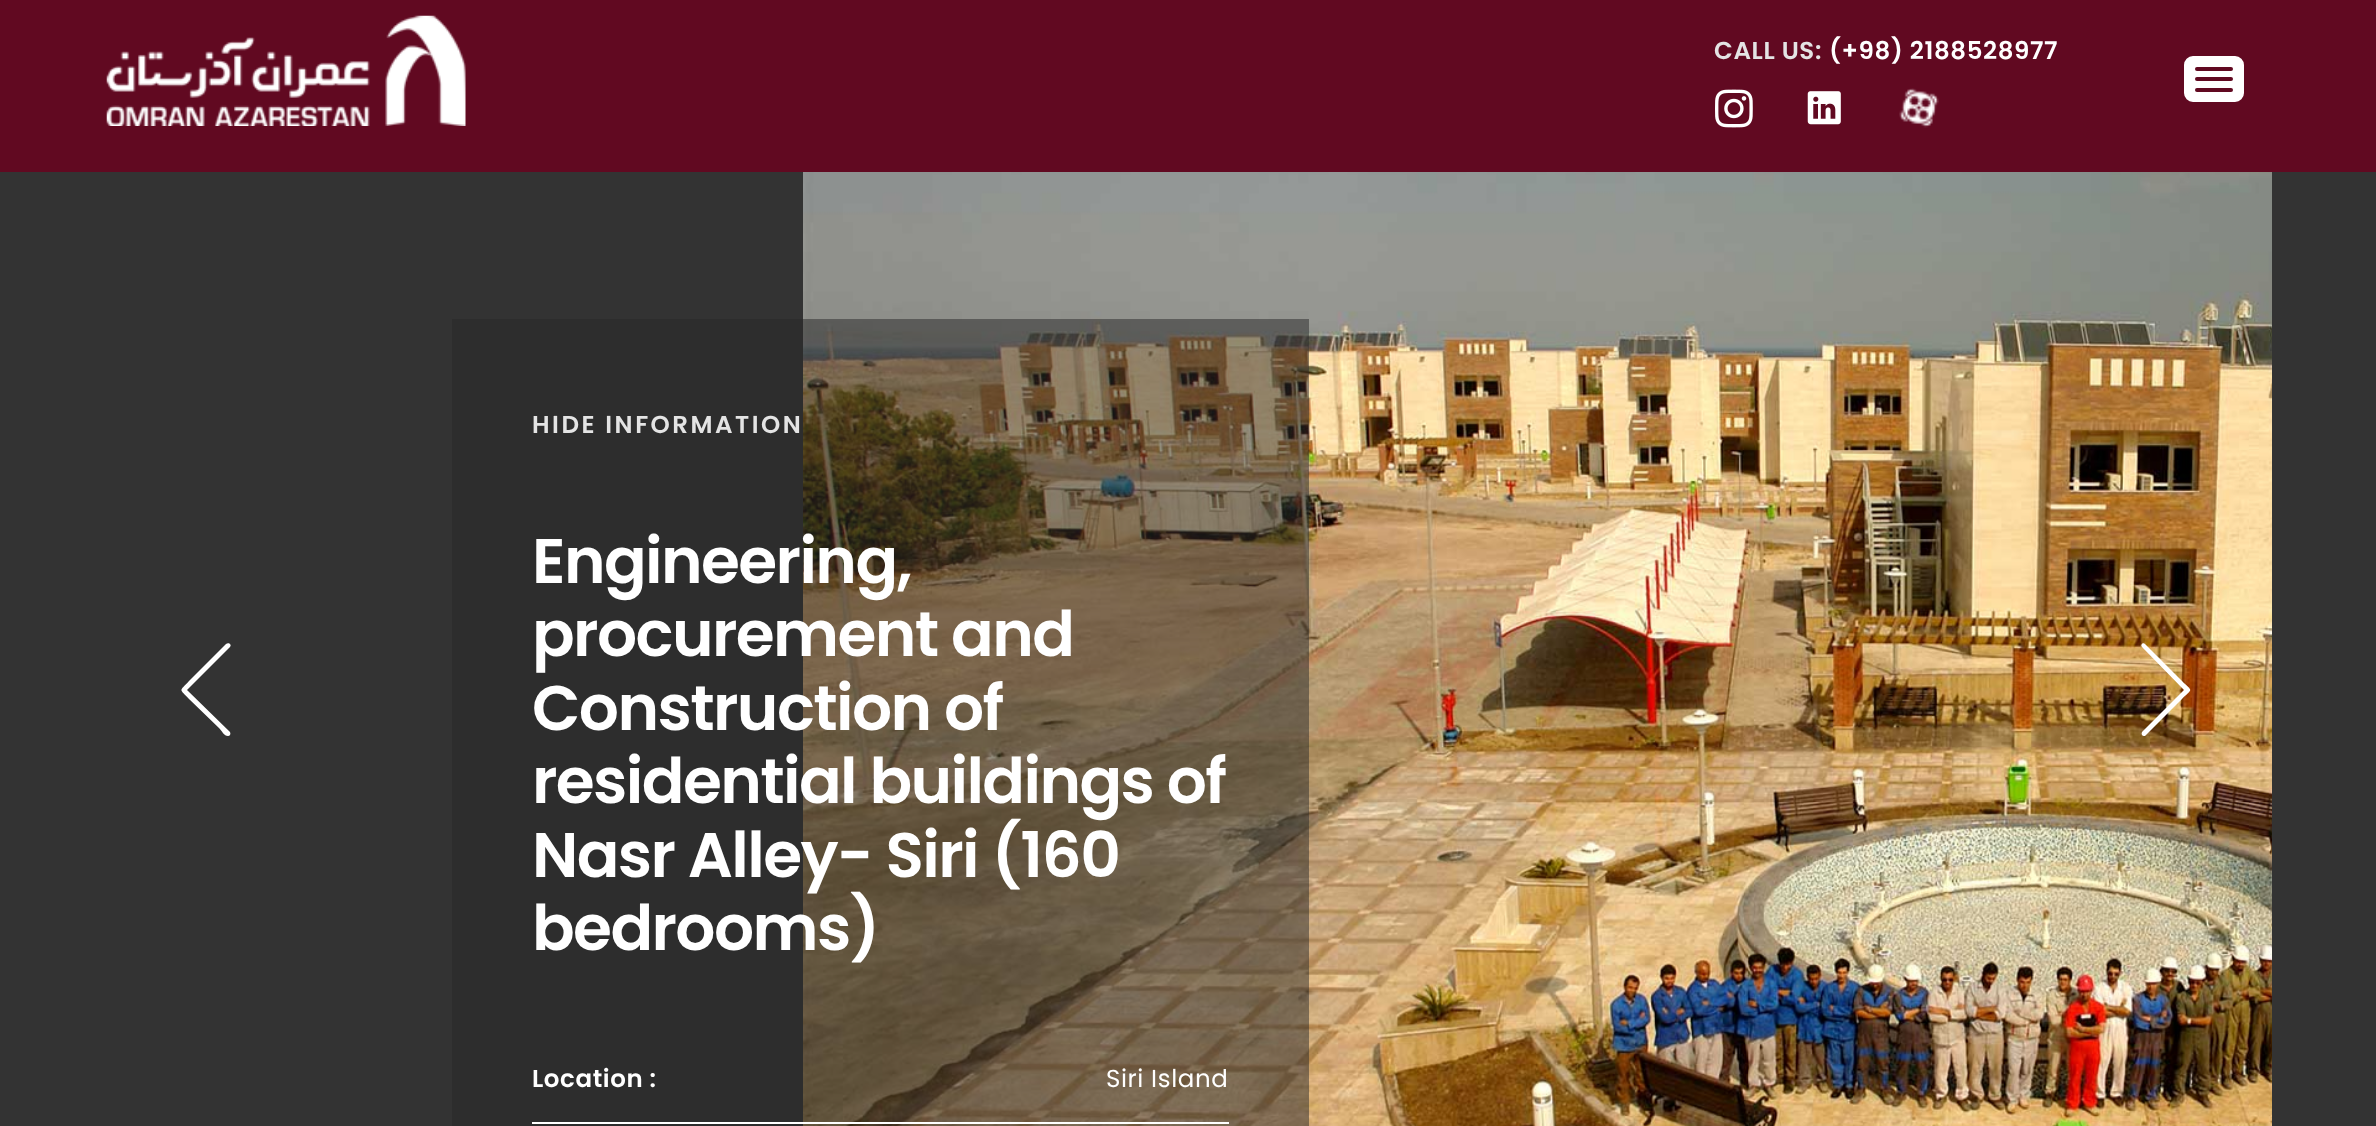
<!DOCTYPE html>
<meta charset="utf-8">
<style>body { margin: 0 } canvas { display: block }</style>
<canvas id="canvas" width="2376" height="1126"></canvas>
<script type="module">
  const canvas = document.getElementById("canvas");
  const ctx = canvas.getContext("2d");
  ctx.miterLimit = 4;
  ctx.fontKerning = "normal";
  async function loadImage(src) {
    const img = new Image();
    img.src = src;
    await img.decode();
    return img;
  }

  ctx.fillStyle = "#333333";
  ctx.fillRect(0, 0, 2376, 1126);
  ctx.fillStyle = "#610921";
  ctx.fillRect(0, 0, 2376, 172);
  ctx.drawImage(await loadImage("img1.png"), 106, 15, 360, 111);
  ctx.letterSpacing = "0.6px";
  ctx.font = "600 24.5px Poppins";
  ctx.fillStyle = "#e4e4e4";
  ctx.fillText("CALL US:", 1714, 59);
  ctx.fillStyle = "#ffffff";
  ctx.fillText("(+98) 2188528977", 1829, 59);
  ctx.drawImage(await loadImage("img2.png"), 1715, 89, 38, 39);
  ctx.drawImage(await loadImage("img3.png"), 1807, 91, 34, 34);
  ctx.drawImage(await loadImage("img4.png"), 1899, 88, 40, 40);
  ctx.beginPath();
  ctx.roundRect(2185, 57, 58, 44, 8);
  ctx.fill();
  ctx.strokeStyle = "#ffffff";
  ctx.lineWidth = 2;
  ctx.stroke();
  ctx.fillStyle = "#610921";
  ctx.beginPath();
  ctx.roundRect(2195, 67, 38, 4, 2);
  ctx.fill();
  ctx.beginPath();
  ctx.roundRect(2195, 77, 38, 4, 2);
  ctx.fill();
  ctx.beginPath();
  ctx.roundRect(2195, 88, 38, 4, 2);
  ctx.fill();
  ctx.drawImage(await loadImage("img5.png"), 803, 172, 1469, 954);
  ctx.fillStyle = "#ffffff";
  ctx.beginPath();
  ctx.moveTo(228, 736);
  ctx.bezierCurveTo(230, 736, 231, 734, 230, 732);
  ctx.lineTo(187, 690);
  ctx.lineTo(230, 647);
  ctx.bezierCurveTo(232, 645, 229, 642, 226, 644);
  ctx.lineTo(189, 681);
  ctx.bezierCurveTo(179, 692, 179, 688, 189, 699);
  ctx.lineTo(219, 728);
  ctx.bezierCurveTo(222, 731, 224, 736, 228, 736);
  ctx.closePath();
  ctx.fill();
  ctx.fillStyle = "rgba(39, 39, 39, 0.5)";
  ctx.fillRect(452, 319, 857, 807);
  ctx.letterSpacing = "2.5px";
  ctx.fillStyle = "#e4e4e4";
  ctx.fillText("HIDE INFORMATION", 532, 433);
  ctx.letterSpacing = "-1.6px";
  ctx.font = "600 63px Poppins";
  ctx.fillStyle = "#ffffff";
  ctx.fillText("Engineering,", 532, 583);
  ctx.fillText("procurement and", 532, 656);
  ctx.fillText("Construction of", 532, 730);
  ctx.fillText("residential buildings of", 532, 803);
  ctx.fillText("Nasr Alley- Siri (160", 532, 877);
  ctx.fillText("bedrooms)", 532, 950);
  ctx.fillRect(532, 1122, 697, 2);
  ctx.letterSpacing = "0.6px";
  ctx.font = "600 24.5px Poppins";
  ctx.fillText("Location :", 532, 1087);
  ctx.font = "24.5px Poppins";
  ctx.fillText("Siri Island", 1106, 1087);
  ctx.beginPath();
  ctx.moveTo(2144, 736);
  ctx.bezierCurveTo(2142, 736, 2141, 734, 2142, 732);
  ctx.lineTo(2184, 690);
  ctx.lineTo(2142, 647);
  ctx.bezierCurveTo(2140, 645, 2143, 642, 2145, 644);
  ctx.lineTo(2182, 681);
  ctx.bezierCurveTo(2193, 692, 2193, 688, 2182, 699);
  ctx.lineTo(2145, 736);
  ctx.closePath();
  ctx.fill();
</script>
